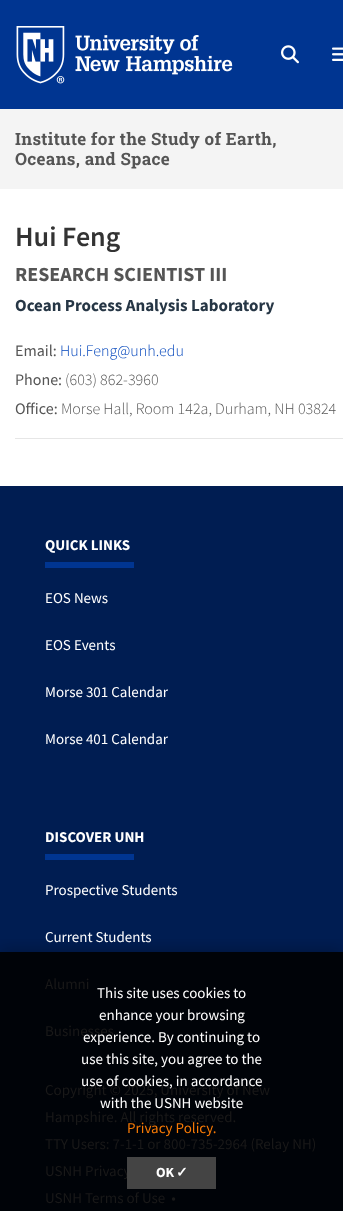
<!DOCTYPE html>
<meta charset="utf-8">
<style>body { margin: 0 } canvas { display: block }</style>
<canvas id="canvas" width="343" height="1211"></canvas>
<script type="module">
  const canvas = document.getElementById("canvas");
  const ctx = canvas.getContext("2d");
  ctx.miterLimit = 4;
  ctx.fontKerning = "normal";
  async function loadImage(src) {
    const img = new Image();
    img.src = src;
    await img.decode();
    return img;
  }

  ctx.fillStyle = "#ffffff";
  ctx.fillRect(0, 0, 343, 1211);
  ctx.fillStyle = "#003591";
  ctx.fillRect(0, 0, 343, 109);
  ctx.drawImage(await loadImage("img1.png"), 16, 26, 217, 58);
  ctx.drawImage(await loadImage("img2.png"), 281, 45, 18, 19);
  ctx.drawImage(await loadImage("img3.png"), 332, 47, 11, 14);
  ctx.fillStyle = "#f4f4f4";
  ctx.fillRect(0, 109, 343, 80);
  ctx.letterSpacing = "0.3px";
  ctx.font = "bold 17px Roboto Slab";
  ctx.fillStyle = "#555555";
  ctx.fillText("Institute for the Study of Earth,", 15, 145);
  ctx.fillText("Oceans, and Space", 15, 165);
  ctx.letterSpacing = "0px";
  ctx.font = "600 28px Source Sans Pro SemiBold";
  ctx.fillStyle = "#333333";
  ctx.fillText("Hui Feng", 15, 246);
  ctx.font = "bold 20px Source Sans Pro";
  ctx.fillStyle = "#555555";
  ctx.fillText("RESEARCH SCIENTIST III", 15, 281);
  ctx.font = "bold 17px Source Sans Pro";
  ctx.fillStyle = "#263645";
  ctx.fillText("Ocean Process Analysis Laboratory", 15, 311);
  ctx.font = "16px Source Sans Pro";
  ctx.fillStyle = "#555555";
  ctx.fillText("Email:", 15, 356);
  ctx.font = "300 16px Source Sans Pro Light";
  ctx.fillStyle = "#0044bb";
  ctx.fillText("Hui.Feng@unh.edu", 60, 356);
  ctx.font = "16px Source Sans Pro";
  ctx.fillStyle = "#555555";
  ctx.fillText("Phone:", 15, 385);
  ctx.font = "300 16px Source Sans Pro Light";
  ctx.fillText("(603) 862-3960", 65, 385);
  ctx.font = "16px Source Sans Pro";
  ctx.fillText("Office:", 15, 414);
  ctx.font = "300 16px Source Sans Pro Light";
  ctx.fillText("Morse Hall, Room 142a, Durham, NH 03824", 61, 414);
  ctx.fillStyle = "#e6e6e6";
  ctx.fillRect(15, 438, 328, 1);
  ctx.fillStyle = "#001d52";
  ctx.fillRect(0, 486, 343, 466);
  ctx.fillStyle = "#000308";
  ctx.fillRect(0, 952, 343, 259);
  ctx.font = "bold 15px Source Sans Pro";
  ctx.fillStyle = "#ffffff";
  ctx.fillText("QUICK LINKS", 45, 550);
  ctx.fillStyle = "#003591";
  ctx.fillRect(45, 562, 89, 6);
  ctx.font = "15px Source Sans Pro";
  ctx.fillStyle = "#ffffff";
  ctx.fillText("EOS News", 45, 603);
  ctx.fillText("EOS Events", 45, 650);
  ctx.fillText("Morse 301 Calendar", 45, 697);
  ctx.fillText("Morse 401 Calendar", 45, 744);
  ctx.font = "bold 15px Source Sans Pro";
  ctx.fillText("DISCOVER UNH", 45, 842);
  ctx.fillStyle = "#003591";
  ctx.fillRect(45, 854, 89, 6);
  ctx.font = "15px Source Sans Pro";
  ctx.fillStyle = "#ffffff";
  ctx.fillText("Prospective Students", 45, 895);
  ctx.fillText("Current Students", 45, 942);
  ctx.fillStyle = "#191919";
  ctx.fillText("Alumni", 45, 989);
  ctx.fillText("Businesses", 45, 1036);
  ctx.fillText("Copyright © 2025, University of New", 45, 1095);
  ctx.fillText("Hampshire. All rights reserved.", 45, 1122);
  ctx.fillText("TTY Users: 7-1-1 or 800-735-2964 (Relay NH)", 45, 1149);
  ctx.fillText("USNH Privacy", 45, 1176);
  ctx.fillText("USNH Terms of Use  •", 45, 1203);
  ctx.save();
  ctx.beginPath();
  ctx.rect(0, 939, 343, 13);
  ctx.clip();
  ctx.fillStyle = "rgba(0, 0, 0, 0.3)";
  ctx.filter = "blur(8.5px)";
  ctx.beginPath();
  ctx.rect(0, 952, 343, 259);
  ctx.fill();
  ctx.filter = "none";
  ctx.restore();
  ctx.fillStyle = "#ffffff";
  ctx.fillText("This site uses cookies to", 97, 998);
  ctx.fillText("enhance your browsing", 99, 1020);
  ctx.fillText("experience. By continuing to", 83, 1042);
  ctx.fillText("use this site, you agree to the", 81, 1064);
  ctx.fillText("use of cookies, in accordance", 81, 1086);
  ctx.fillText("with the USNH website", 100, 1108);
  ctx.fillStyle = "#f77a05";
  ctx.fillText("Privacy Policy.", 127, 1133);
  ctx.fillStyle = "#444444";
  ctx.fillRect(127, 1157, 89, 32);
  ctx.font = "bold 14px Source Sans Pro";
  ctx.fillStyle = "#ffffff";
  ctx.fillText("OK", 156, 1177);
  ctx.font = "bold 14px DejaVu Sans";
  ctx.fillText("✓", 176, 1177);
</script>
